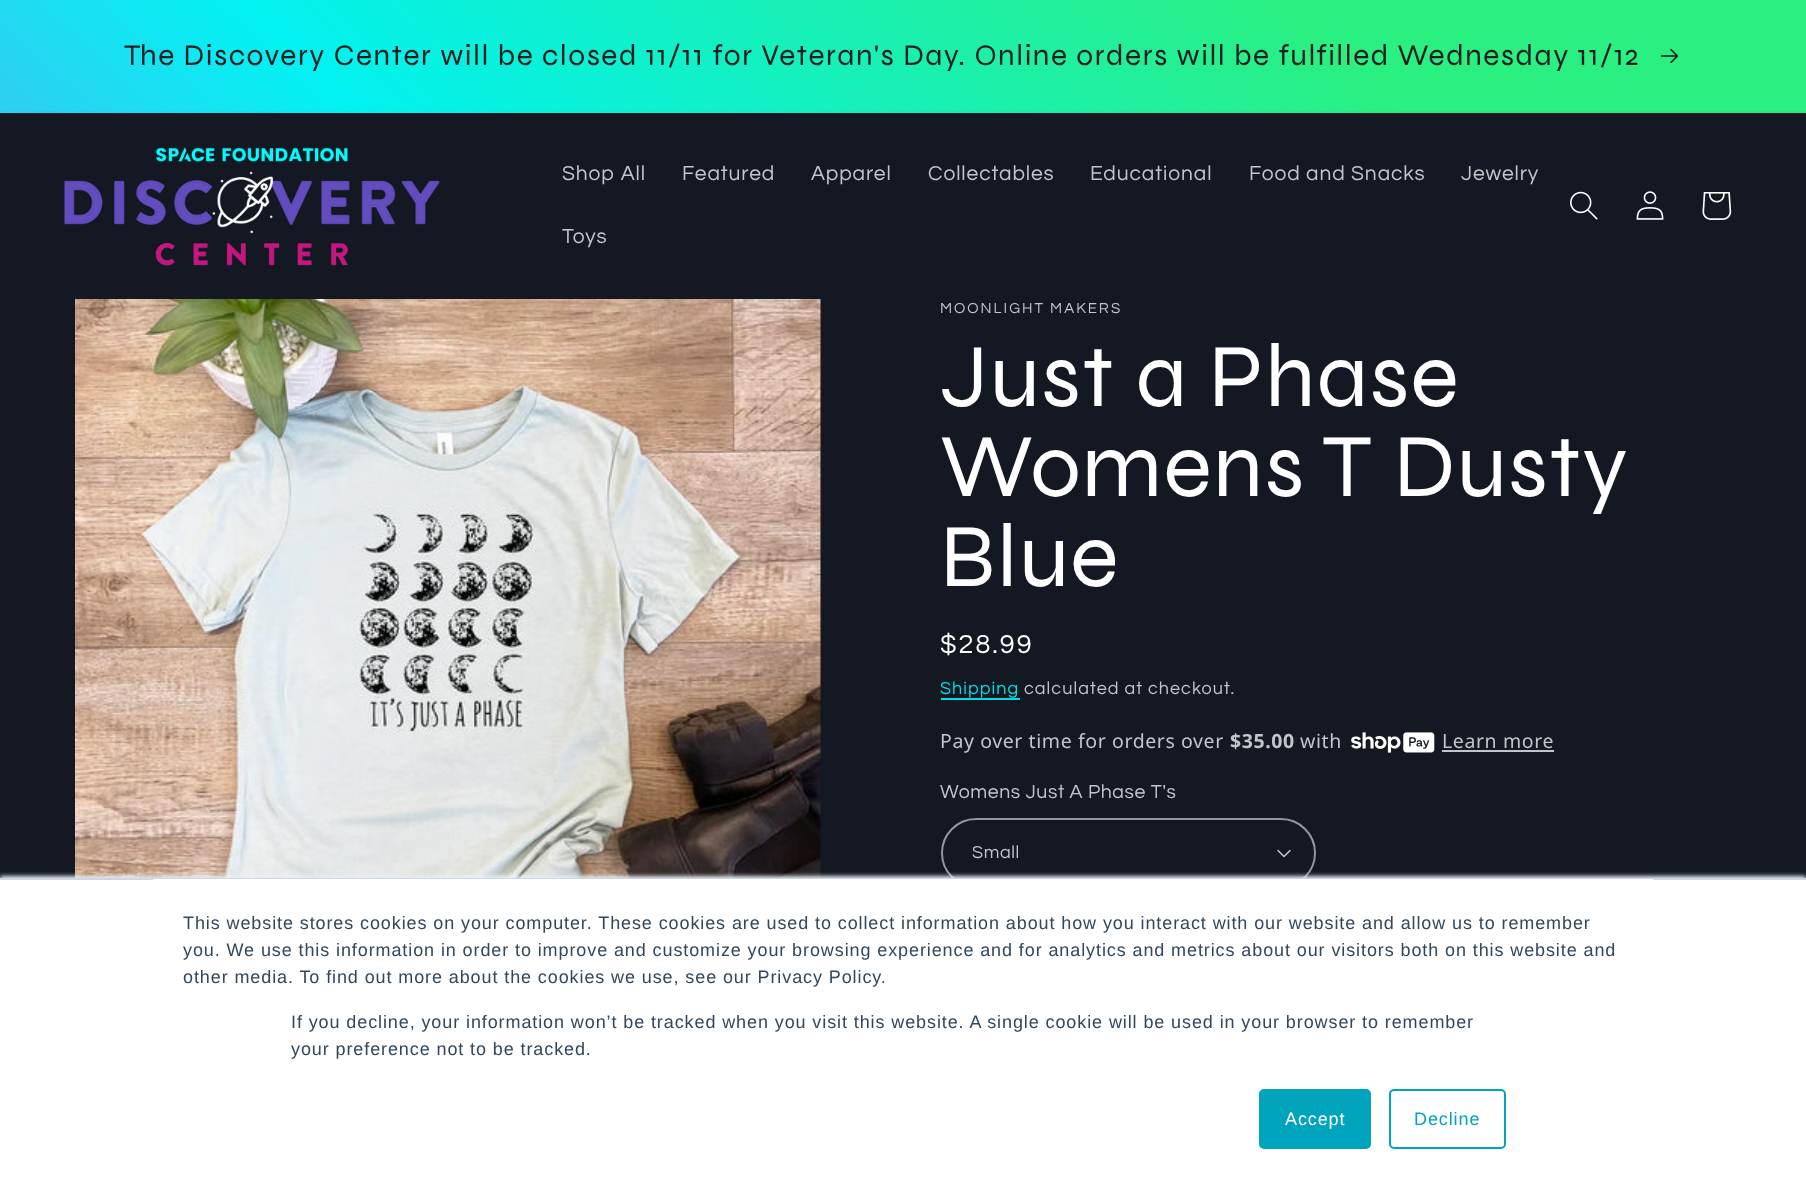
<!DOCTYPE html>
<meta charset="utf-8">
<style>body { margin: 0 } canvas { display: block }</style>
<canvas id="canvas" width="1806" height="1188"></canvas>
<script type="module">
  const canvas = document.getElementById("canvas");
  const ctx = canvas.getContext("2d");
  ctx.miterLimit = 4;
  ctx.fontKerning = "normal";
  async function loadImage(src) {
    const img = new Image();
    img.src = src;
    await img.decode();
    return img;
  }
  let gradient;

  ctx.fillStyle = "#131823";
  ctx.fillRect(0, 0, 1806, 1188);
  gradient = ctx.createLinearGradient(187, 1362, 1619, -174);
  gradient.addColorStop(0.08, "#a472f2");
  gradient.addColorStop(0.49, "#02f2f2");
  gradient.addColorStop(0.83, "#2aef81");
  ctx.fillStyle = gradient;
  ctx.fillRect(0, 0, 1806, 111);
  gradient = ctx.createLinearGradient(187, 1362, 1619, -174);
  gradient.addColorStop(0.08, "#a170ed");
  gradient.addColorStop(0.49, "#02eded");
  gradient.addColorStop(0.83, "#2aea7f");
  ctx.fillStyle = gradient;
  ctx.fillRect(0, 111, 1806, 2);
  ctx.letterSpacing = "1.5px";
  ctx.font = "30px Syne";
  ctx.fillStyle = "#1f1f21";
  ctx.fillText("The Discovery Center will be closed 11/11 for Veteran's Day. Online orders will be fulfilled Wednesday 11/12", 124, 65);
  ctx.drawImage(await loadImage("img1.png"), 1661, 48, 18, 15);
  ctx.drawImage(await loadImage("img2.png"), 64, 147, 376, 119);
  ctx.letterSpacing = "0.9px";
  ctx.font = "21px Questrial";
  ctx.fillStyle = "#c4c5c8";
  ctx.fillText("Shop All", 562, 180);
  ctx.fillText("Featured", 682, 180);
  ctx.fillText("Apparel", 811, 180);
  ctx.fillText("Collectables", 928, 180);
  ctx.fillText("Educational", 1090, 180);
  ctx.fillText("Food and Snacks", 1249, 180);
  ctx.fillText("Jewelry", 1461, 180);
  ctx.fillText("Toys", 562, 243);
  ctx.drawImage(await loadImage("img3.png"), 1570, 191, 28, 29);
  ctx.drawImage(await loadImage("img4.png"), 1636, 191, 28, 29);
  ctx.drawImage(await loadImage("img5.png"), 1702, 192, 30, 28);
  ctx.drawImage(await loadImage("img6.png"), 75, 299, 746, 579);
  ctx.letterSpacing = "2px";
  ctx.font = "15px Questrial";
  ctx.fillText("MOONLIGHT MAKERS", 940, 313);
  ctx.letterSpacing = "1.4px";
  ctx.font = "90px Syne";
  ctx.fillStyle = "#ffffff";
  ctx.fillText("Just a Phase", 940, 406);
  ctx.fillText("Womens T Dusty", 940, 496);
  ctx.fillText("Blue", 940, 586);
  ctx.letterSpacing = "2px";
  ctx.font = "27px Questrial";
  ctx.fillText("$28.99", 940, 653);
  ctx.letterSpacing = "1.05px";
  ctx.font = "18px Questrial";
  ctx.fillStyle = "#03dcde";
  ctx.fillText("Shipping", 940, 694);
  ctx.fillRect(941, 698, 79, 2);
  ctx.fillStyle = "#c4c5c8";
  ctx.fillText("calculated at checkout.", 1024, 694);
  ctx.letterSpacing = "0.6px";
  ctx.font = "19.5px Noto Sans";
  ctx.fillText("Pay over time for orders over", 940, 748);
  ctx.font = "bold 19.5px Noto Sans";
  ctx.fillText("$35.00", 1230, 748);
  ctx.font = "19.5px Noto Sans";
  ctx.fillText("with", 1300, 748);
  ctx.drawImage(await loadImage("img7.png"), 1351, 732, 84, 21);
  ctx.fillText("Learn more", 1442, 748);
  ctx.fillRect(1442, 750, 112, 2);
  ctx.font = "19.5px Questrial";
  ctx.fillText("Womens Just A Phase T's", 940, 798);
  ctx.drawImage(await loadImage("img8.png"), 1277, 849, 14, 9);
  ctx.beginPath();
  ctx.roundRect(942, 819, 373, 68, 34);
  ctx.strokeStyle = "#95979c";
  ctx.lineWidth = 2;
  ctx.stroke();
  ctx.font = "18px Questrial";
  ctx.fillText("Small", 972, 858);
  ctx.fillStyle = "#eaf0f6";
  ctx.filter = "blur(2px)";
  ctx.beginPath();
  ctx.rect(0, 876, 1806, 311);
  ctx.fill();
  ctx.filter = "none";
  ctx.fillStyle = "#ffffff";
  ctx.fillRect(0, 880, 1806, 308);
  ctx.fillStyle = "#cbd6e2";
  ctx.fillRect(0, 878, 1806, 2);
  ctx.fillStyle = "#ffffff";
  ctx.fillRect(153, 879, 1500, 1);
  ctx.letterSpacing = "0.9px";
  ctx.font = "18px Liberation Sans";
  ctx.fillStyle = "#33475b";
  ctx.fillText("This website stores cookies on your computer. These cookies are used to collect information about how you interact with our website and allow us to remember", 183, 929);
  ctx.fillText("you. We use this information in order to improve and customize your browsing experience and for analytics and metrics about our visitors both on this website and", 183, 956);
  ctx.fillText("other media. To find out more about the cookies we use, see our Privacy Policy.", 183, 983);
  ctx.fillText("If you decline, your information won’t be tracked when you visit this website. A single cookie will be used in your browser to remember", 291, 1028);
  ctx.fillText("your preference not to be tracked.", 291, 1055);
  ctx.fillStyle = "#00a4bd";
  ctx.beginPath();
  ctx.roundRect(1260, 1090, 110, 58, 4);
  ctx.fill();
  ctx.strokeStyle = "#00a4bd";
  ctx.stroke();
  ctx.fillStyle = "#ffffff";
  ctx.fillText("Accept", 1285, 1125);
  ctx.beginPath();
  ctx.roundRect(1390, 1090, 115, 58, 4);
  ctx.stroke();
  ctx.fillStyle = "#00a4bd";
  ctx.fillText("Decline", 1414, 1125);
</script>
